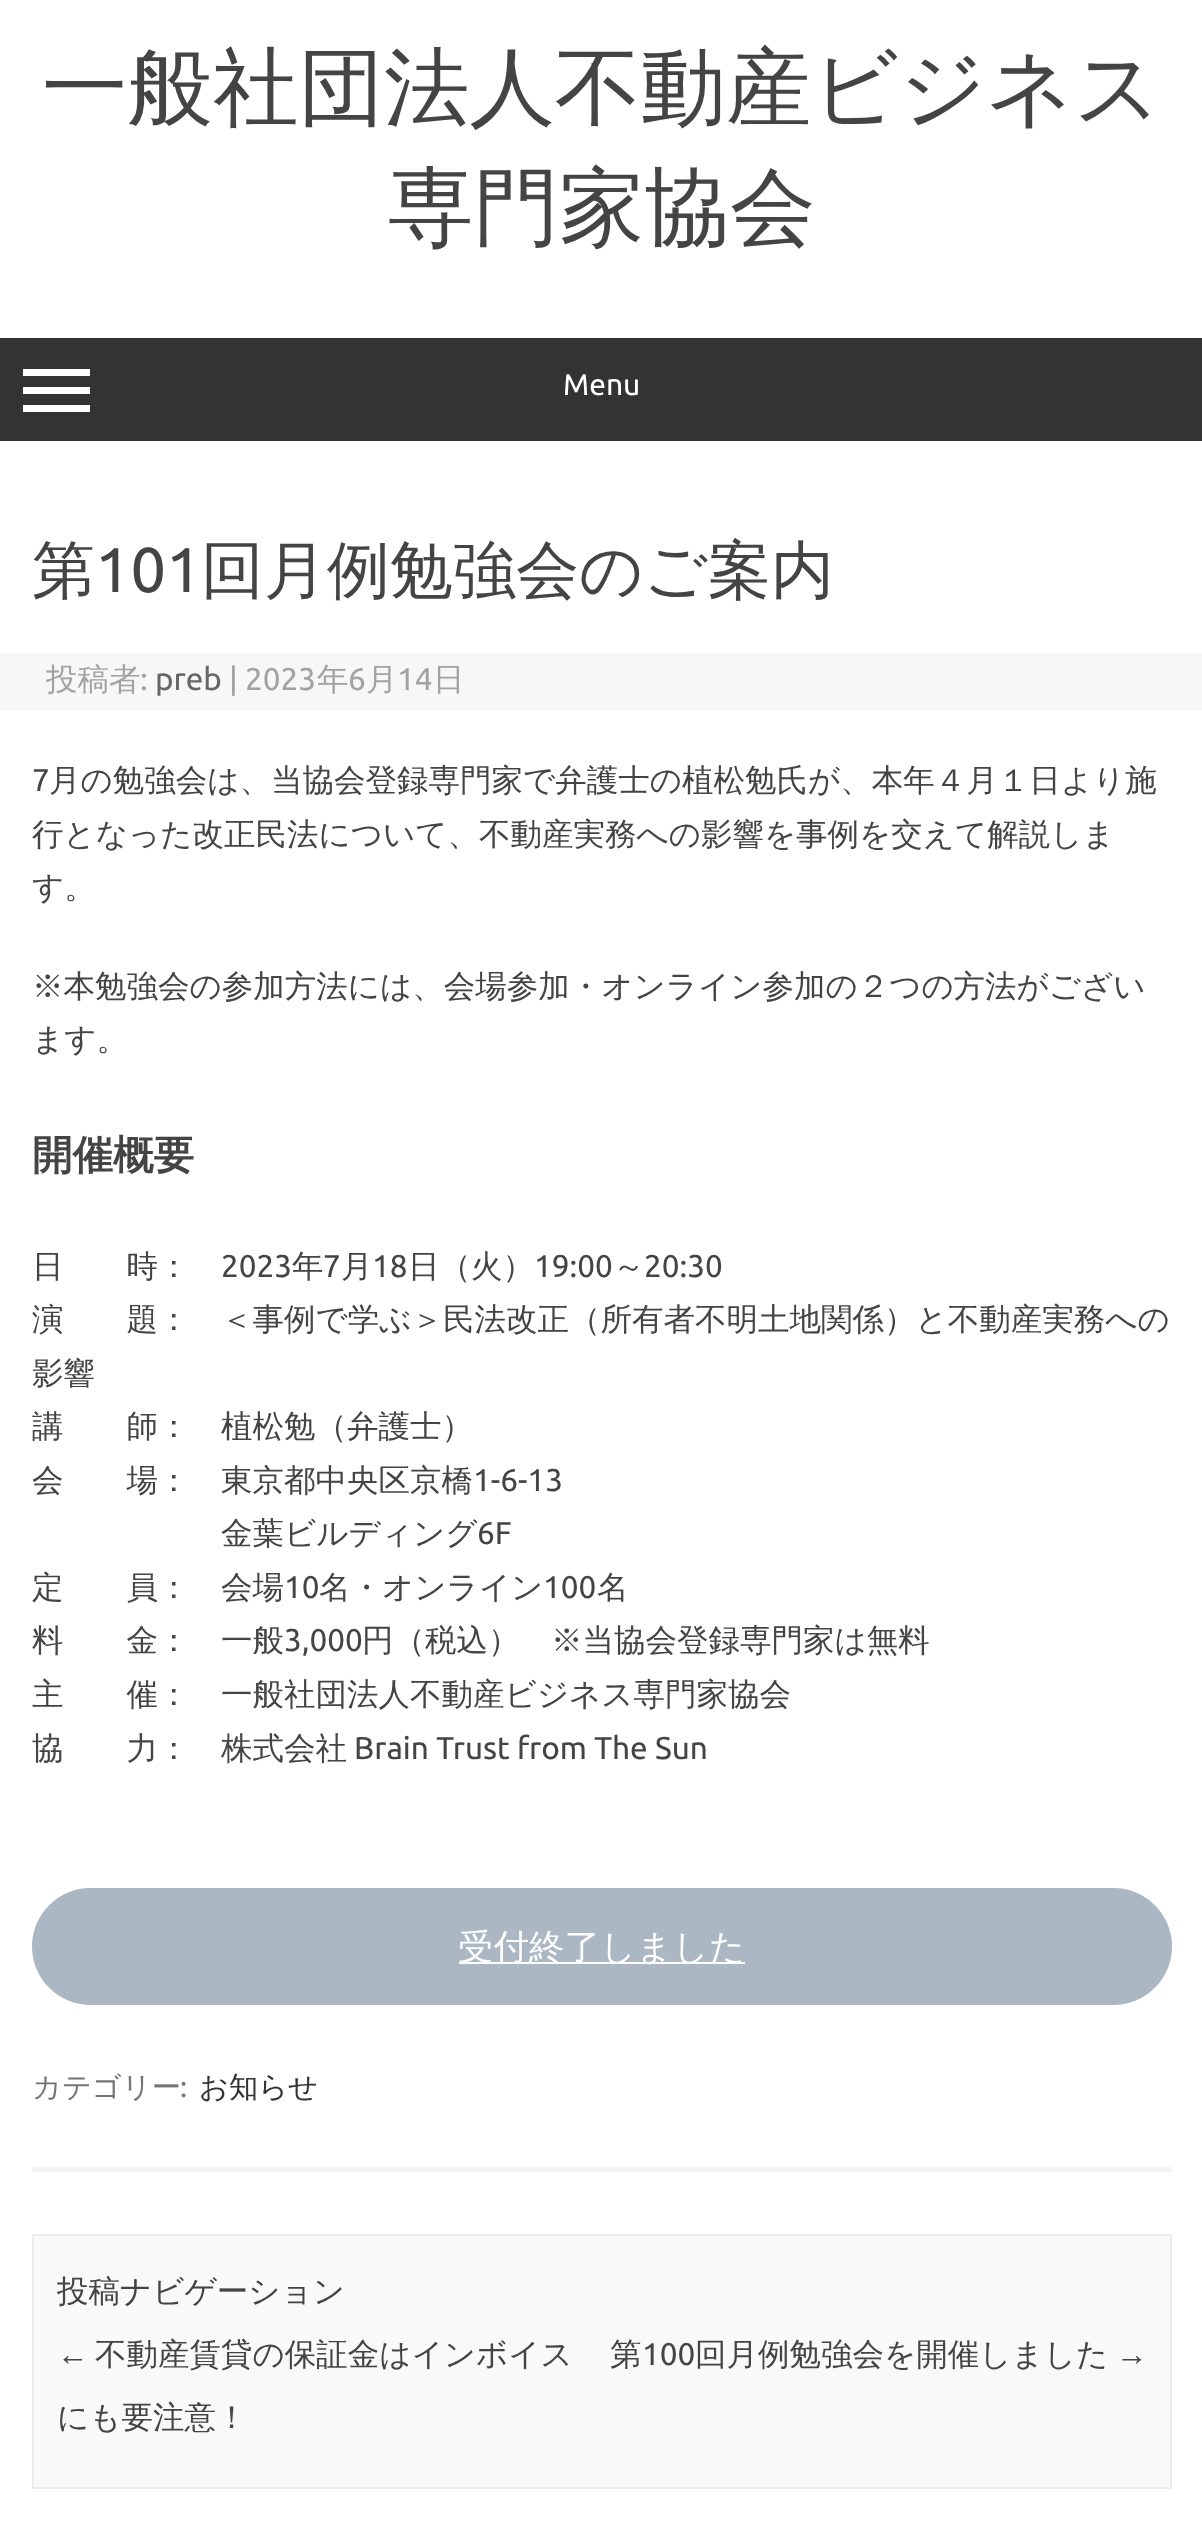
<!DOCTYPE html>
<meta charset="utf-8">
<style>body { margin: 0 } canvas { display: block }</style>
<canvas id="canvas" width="1202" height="2542"></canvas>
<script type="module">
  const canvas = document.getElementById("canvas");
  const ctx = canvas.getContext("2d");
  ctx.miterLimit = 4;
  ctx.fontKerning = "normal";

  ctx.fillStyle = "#ffffff";
  ctx.fillRect(0, 0, 1202, 2542);
  ctx.font = "500 85.5px WenQuanYi Zen Hei";
  ctx.fillStyle = "#444444";
  ctx.fillText("一般社団法人不動産ビジネス", 42, 117);
  ctx.fillText("専門家協会", 388, 237);
  ctx.fillStyle = "#333333";
  ctx.fillRect(0, 338, 1202, 103);
  ctx.fillStyle = "#ffffff";
  ctx.fillRect(23, 369, 67, 7);
  ctx.fillRect(23, 387, 67, 7);
  ctx.fillRect(23, 405, 67, 7);
  ctx.font = "30px Ubuntu";
  ctx.fillText("Menu", 563, 395);
  ctx.fillStyle = "#f3f3f3";
  ctx.fillRect(32, 2167, 1140, 5);
  ctx.font = "500 63px WenQuanYi Zen Hei";
  ctx.fillStyle = "#444444";
  ctx.fillText("第", 32, 592);
  ctx.font = "63px Ubuntu";
  ctx.fillText("101", 95, 592);
  ctx.font = "500 63px WenQuanYi Zen Hei";
  ctx.fillText("回月例勉強会のご案内", 201, 592);
  ctx.fillStyle = "#f7f7f7";
  ctx.fillRect(0, 653, 1202, 58);
  ctx.font = "500 31.5px WenQuanYi Zen Hei";
  ctx.fillStyle = "#a2a2a2";
  ctx.fillText("投稿者", 46, 690);
  ctx.font = "31.5px Ubuntu";
  ctx.fillText(":", 140, 690);
  ctx.fillStyle = "#666666";
  ctx.fillText("preb", 155, 690);
  ctx.fillStyle = "#a2a2a2";
  ctx.fillText("| 2023", 229, 690);
  ctx.font = "500 31.5px WenQuanYi Zen Hei";
  ctx.fillText("年", 317, 690);
  ctx.font = "31.5px Ubuntu";
  ctx.fillText("6", 348, 690);
  ctx.font = "500 31.5px WenQuanYi Zen Hei";
  ctx.fillText("月", 366, 690);
  ctx.font = "31.5px Ubuntu";
  ctx.fillText("14", 397, 690);
  ctx.font = "500 31.5px WenQuanYi Zen Hei";
  ctx.fillText("日", 433, 690);
  ctx.font = "31.5px Ubuntu";
  ctx.fillStyle = "#444444";
  ctx.fillText("7", 32, 791);
  ctx.font = "500 31.5px WenQuanYi Zen Hei";
  ctx.fillText("月の勉強会は、当協会登録専門家で弁護士の植松勉氏が、本年４月１日より施", 49, 791);
  ctx.fillText("行となった改正民法について、不動産実務への影響を事例を交えて解説しま", 32, 845);
  ctx.fillText("す。", 32, 898);
  ctx.fillText("※本勉強会の参加方法には、会場参加・オンライン参加の２つの方法がござい", 32, 997);
  ctx.fillText("ます。", 32, 1050);
  ctx.font = "bold 40.5px WenQuanYi Zen Hei";
  ctx.fillText("開催概要", 32, 1169);
  ctx.font = "500 31.5px WenQuanYi Zen Hei";
  ctx.fillText("日　　時：", 32, 1277);
  ctx.font = "31.5px Ubuntu";
  ctx.fillText("2023", 221, 1277);
  ctx.font = "500 31.5px WenQuanYi Zen Hei";
  ctx.fillText("年", 292, 1277);
  ctx.font = "31.5px Ubuntu";
  ctx.fillText("7", 323, 1277);
  ctx.font = "500 31.5px WenQuanYi Zen Hei";
  ctx.fillText("月", 341, 1277);
  ctx.font = "31.5px Ubuntu";
  ctx.fillText("18", 372, 1277);
  ctx.font = "500 31.5px WenQuanYi Zen Hei";
  ctx.fillText("日（火）", 408, 1277);
  ctx.font = "31.5px Ubuntu";
  ctx.fillText("19:00", 534, 1277);
  ctx.font = "500 31.5px WenQuanYi Zen Hei";
  ctx.fillText("～", 613, 1277);
  ctx.font = "31.5px Ubuntu";
  ctx.fillText("20:30", 644, 1277);
  ctx.font = "500 31.5px WenQuanYi Zen Hei";
  ctx.fillText("演　　題：　＜事例で学ぶ＞民法改正（所有者不明土地関係）と不動産実務への", 32, 1330);
  ctx.fillText("影響", 32, 1384);
  ctx.fillText("講　　師：　植松勉（弁護士）", 32, 1437);
  ctx.fillText("会　　場：　東京都中央区京橋", 32, 1491);
  ctx.font = "31.5px Ubuntu";
  ctx.fillText("1-6-13", 473, 1491);
  ctx.font = "500 31.5px WenQuanYi Zen Hei";
  ctx.fillText("金葉ビルディング", 221, 1544);
  ctx.font = "31.5px Ubuntu";
  ctx.fillText("6F", 477, 1544);
  ctx.font = "500 31.5px WenQuanYi Zen Hei";
  ctx.fillText("定　　員：　会場", 32, 1598);
  ctx.font = "31.5px Ubuntu";
  ctx.fillText("10", 284, 1598);
  ctx.font = "500 31.5px WenQuanYi Zen Hei";
  ctx.fillText("名・オンライン", 319, 1598);
  ctx.font = "31.5px Ubuntu";
  ctx.fillText("100", 543, 1598);
  ctx.font = "500 31.5px WenQuanYi Zen Hei";
  ctx.fillText("名", 597, 1598);
  ctx.fillText("料　　金：　一般", 32, 1651);
  ctx.font = "31.5px Ubuntu";
  ctx.fillText("3,000", 284, 1651);
  ctx.font = "500 31.5px WenQuanYi Zen Hei";
  ctx.fillText("円（税込）　※当協会登録専門家は無料", 362, 1651);
  ctx.fillText("主　　催：　一般社団法人不動産ビジネス専門家協会", 32, 1705);
  ctx.fillText("協　　力：　株式会社", 32, 1759);
  ctx.font = "31.5px Ubuntu";
  ctx.fillText("Brain Trust from The Sun", 354, 1759);
  ctx.fillStyle = "#abb8c3";
  ctx.beginPath();
  ctx.roundRect(32, 1888, 1140, 117, 58.5);
  ctx.fill();
  ctx.fillStyle = "#ffffff";
  ctx.fillRect(459, 1962, 286, 2);
  ctx.font = "500 35.5px WenQuanYi Zen Hei";
  ctx.fillText("受付終了しました", 458, 1959);
  ctx.font = "500 29.25px WenQuanYi Zen Hei";
  ctx.fillStyle = "#757575";
  ctx.fillText("カテゴリー", 32, 2097);
  ctx.font = "29.25px Ubuntu";
  ctx.fillText(":", 180, 2097);
  ctx.font = "500 29.25px WenQuanYi Zen Hei";
  ctx.fillStyle = "#333333";
  ctx.fillText("お知らせ", 199, 2097);
  ctx.fillStyle = "#f9f9f9";
  ctx.beginPath();
  ctx.rect(33, 2235, 1138, 253);
  ctx.fill();
  ctx.strokeStyle = "#ededed";
  ctx.lineWidth = 2;
  ctx.stroke();
  ctx.font = "500 31.5px WenQuanYi Zen Hei";
  ctx.fillStyle = "#444444";
  ctx.fillText("投稿ナビゲーション", 57, 2302);
  ctx.font = "31.5px Liberation Sans";
  ctx.fillText("←", 57, 2365);
  ctx.font = "500 31.5px WenQuanYi Zen Hei";
  ctx.fillText("不動産賃貸の保証金はインボイス", 95, 2365);
  ctx.fillText("にも要注意！", 57, 2428);
  ctx.fillText("第", 610, 2365);
  ctx.font = "31.5px Ubuntu";
  ctx.fillText("100", 642, 2365);
  ctx.font = "500 31.5px WenQuanYi Zen Hei";
  ctx.fillText("回月例勉強会を開催しました", 695, 2365);
  ctx.font = "31.5px Liberation Sans";
  ctx.fillText("→", 1116, 2365);
</script>
